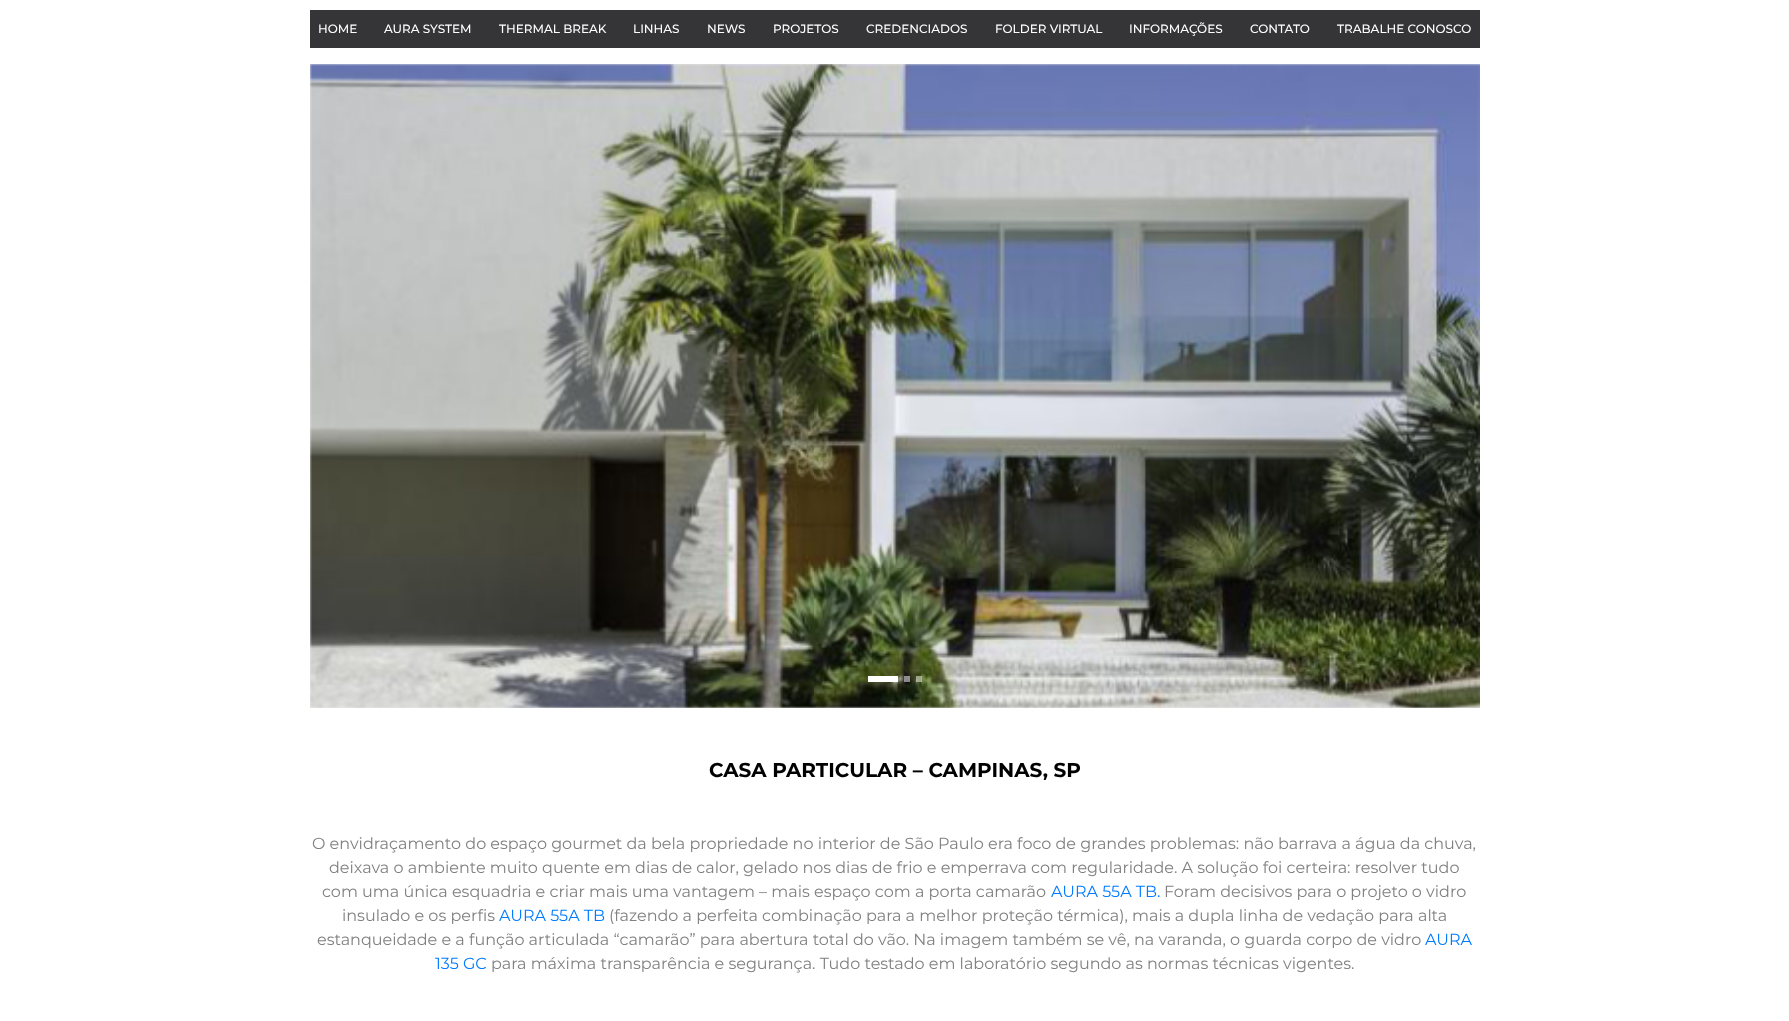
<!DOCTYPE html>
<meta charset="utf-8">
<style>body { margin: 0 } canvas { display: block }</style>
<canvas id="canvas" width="1789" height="1021"></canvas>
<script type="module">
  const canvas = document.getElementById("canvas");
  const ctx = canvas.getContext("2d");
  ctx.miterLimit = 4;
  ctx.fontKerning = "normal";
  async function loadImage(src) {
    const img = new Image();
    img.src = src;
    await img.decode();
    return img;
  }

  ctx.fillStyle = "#ffffff";
  ctx.fillRect(0, 0, 1789, 1021);
  ctx.fillStyle = "#353537";
  ctx.fillRect(310, 10, 1170, 38);
  ctx.font = "500 12px Montserrat";
  ctx.fillStyle = "#ffffff";
  ctx.fillText("HOME", 318, 33);
  ctx.fillText("AURA SYSTEM", 384, 33);
  ctx.fillText("THERMAL BREAK", 499, 33);
  ctx.fillText("LINHAS", 633, 33);
  ctx.fillText("NEWS", 707, 33);
  ctx.fillText("PROJETOS", 773, 33);
  ctx.fillText("CREDENCIADOS", 866, 33);
  ctx.fillText("FOLDER VIRTUAL", 995, 33);
  ctx.fillText("INFORMAÇÕES", 1129, 33);
  ctx.fillText("CONTATO", 1250, 33);
  ctx.fillText("TRABALHE CONOSCO", 1337, 33);
  ctx.fillStyle = "#eaeaea";
  ctx.fillRect(310, 64, 1170, 644);
  ctx.drawImage(await loadImage("img1.png"), 310, 64, 1170, 644);
  ctx.fillStyle = "#ffffff";
  ctx.fillRect(868, 676, 30, 6);
  ctx.fillStyle = "rgba(255, 255, 255, 0.5)";
  ctx.fillRect(904, 676, 6, 6);
  ctx.fillRect(916, 676, 6, 6);
  ctx.font = "bold 20px Montserrat";
  ctx.fillStyle = "#000000";
  ctx.fillText("CASA PARTICULAR – CAMPINAS, SP", 709, 777);
  ctx.font = "16px Montserrat";
  ctx.fillStyle = "#818181";
  ctx.fillText("O envidraçamento do espaço gourmet da bela propriedade no interior de São Paulo era foco de grandes problemas: não barrava a água da chuva,", 312, 849);
  ctx.fillText("deixava o ambiente muito quente em dias de calor, gelado nos dias de frio e emperrava com regularidade. A solução foi certeira: resolver tudo", 329, 873);
  ctx.fillText("com uma única esquadria e criar mais uma vantagem – mais espaço com a porta camarão", 322, 897);
  ctx.fillStyle = "#007bff";
  ctx.fillText("AURA 55A TB.", 1051, 897);
  ctx.fillStyle = "#818181";
  ctx.fillText("Foram decisivos para o projeto o vidro", 1164, 897);
  ctx.fillText("insulado e os perfis", 342, 921);
  ctx.fillStyle = "#007bff";
  ctx.fillText("AURA 55A TB", 499, 921);
  ctx.fillStyle = "#818181";
  ctx.fillText("(fazendo a perfeita combinação para a melhor proteção térmica), mais a dupla linha de vedação para alta", 609, 921);
  ctx.fillText("estanqueidade e a função articulada “camarão” para abertura total do vão. Na imagem também se vê, na varanda, o guarda corpo de vidro", 317, 945);
  ctx.fillStyle = "#007bff";
  ctx.fillText("AURA", 1425, 945);
  ctx.fillText("135 GC", 435, 969);
  ctx.fillStyle = "#818181";
  ctx.fillText("para máxima transparência e segurança. Tudo testado em laboratório segundo as normas técnicas vigentes.", 491, 969);
</script>
